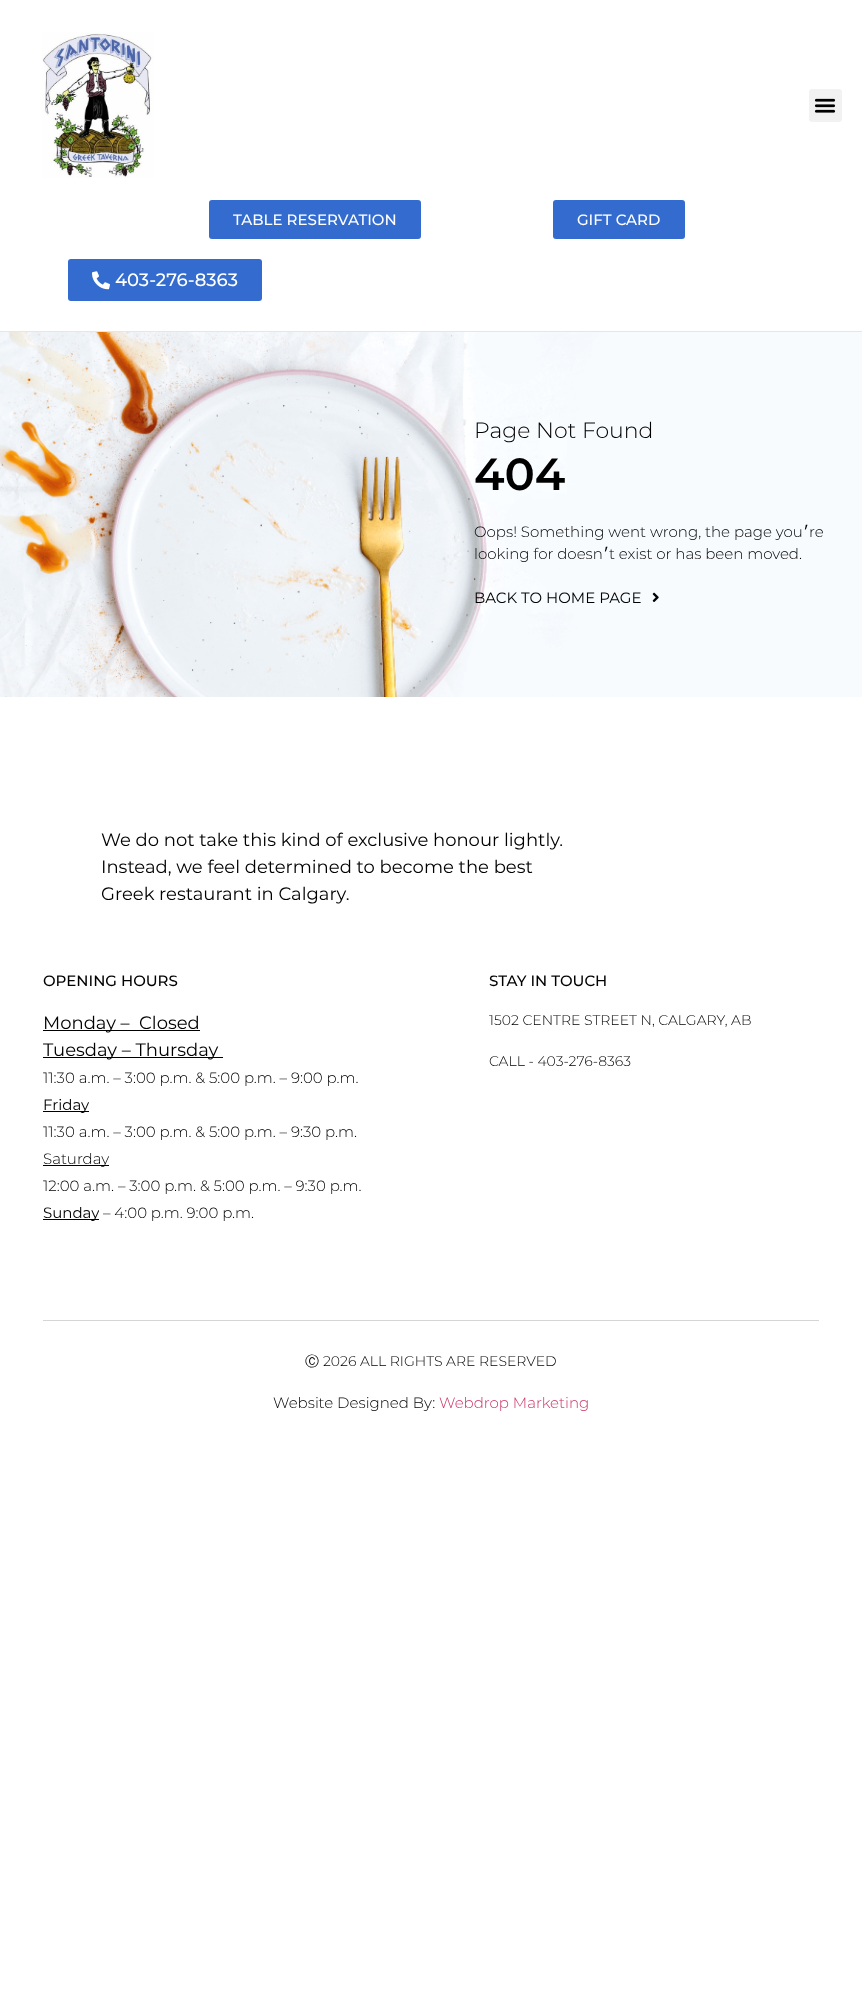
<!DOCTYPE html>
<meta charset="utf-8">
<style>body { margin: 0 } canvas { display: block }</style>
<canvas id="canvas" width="862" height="2011"></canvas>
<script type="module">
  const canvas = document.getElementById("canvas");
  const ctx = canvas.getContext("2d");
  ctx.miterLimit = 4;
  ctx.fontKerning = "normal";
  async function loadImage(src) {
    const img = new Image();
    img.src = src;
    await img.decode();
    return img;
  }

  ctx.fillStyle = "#ffffff";
  ctx.fillRect(0, 0, 862, 2011);
  ctx.fillStyle = "#e6e6e6";
  ctx.fillRect(0, 331, 862, 1);
  ctx.drawImage(await loadImage("img1.png"), 42, 32, 112, 146);
  ctx.fillStyle = "#f2f2f2";
  ctx.beginPath();
  ctx.roundRect(809, 89, 33, 33, 3);
  ctx.fill();
  ctx.drawImage(await loadImage("img2.png"), 814, 98, 22, 15);
  ctx.fillStyle = "#336cce";
  ctx.beginPath();
  ctx.roundRect(209, 200, 212, 39, 3);
  ctx.fill();
  ctx.font = "500 15px Montserrat";
  ctx.fillStyle = "#ffffff";
  ctx.fillText("TABLE RESERVATION", 233, 225);
  ctx.fillStyle = "#336cce";
  ctx.beginPath();
  ctx.roundRect(553, 200, 132, 39, 3);
  ctx.fill();
  ctx.fillStyle = "#ffffff";
  ctx.fillText("GIFT CARD", 577, 225);
  ctx.fillStyle = "#336cce";
  ctx.beginPath();
  ctx.roundRect(68, 259, 194, 42, 3);
  ctx.fill();
  ctx.drawImage(await loadImage("img3.png"), 92, 271, 18, 19);
  ctx.font = "500 18px Montserrat";
  ctx.fillStyle = "#ffffff";
  ctx.fillText("403-276-8363", 115, 286);
  ctx.drawImage(await loadImage("img4.png"), 0, 332, 862, 365);
  ctx.font = "300 22px Montserrat";
  ctx.fillStyle = "#000000";
  ctx.fillText("Page Not Found", 474, 438);
  ctx.font = "600 45px Montserrat";
  ctx.fillText("404", 474, 490);
  ctx.font = "300 15px Montserrat";
  ctx.fillText("Oops! Something went wrong, the page you", 474, 537);
  ctx.direction = "rtl";
  ctx.font = "15px Liberation Sans";
  ctx.fillText("׳", 809, 537);
  ctx.direction = "ltr";
  ctx.font = "300 15px Montserrat";
  ctx.fillText("re", 809, 537);
  ctx.fillText("looking for doesn", 474, 559);
  ctx.direction = "rtl";
  ctx.font = "15px Liberation Sans";
  ctx.fillText("׳", 609, 559);
  ctx.direction = "ltr";
  ctx.font = "300 15px Montserrat";
  ctx.fillText("t exist or has been moved.", 609, 559);
  ctx.font = "15px Montserrat";
  ctx.fillText("BACK TO HOME PAGE", 474, 603);
  ctx.drawImage(await loadImage("img5.png"), 652, 592, 7, 10);
  ctx.font = "18px Montserrat";
  ctx.fillText("We do not take this kind of exclusive honour lightly.", 101, 846);
  ctx.fillText("Instead, we feel determined to become the best", 101, 873);
  ctx.fillText("Greek restaurant in Calgary.", 101, 900);
  ctx.font = "500 15px Montserrat";
  ctx.fillText("OPENING HOURS", 43, 986);
  ctx.fillRect(43, 1030, 157, 1);
  ctx.font = "18px Montserrat";
  ctx.fillText("Monday –  Closed", 43, 1029);
  ctx.fillRect(43, 1057, 180, 1);
  ctx.fillText("Tuesday – Thursday", 43, 1056);
  ctx.font = "300 15px Montserrat";
  ctx.fillText("11:30 a.m. – 3:00 p.m. & 5:00 p.m. – 9:00 p.m.", 43, 1083);
  ctx.fillRect(43, 1111, 46, 1);
  ctx.font = "15px Montserrat";
  ctx.fillText("Friday", 43, 1110);
  ctx.font = "300 15px Montserrat";
  ctx.fillText("11:30 a.m. – 3:00 p.m. & 5:00 p.m. – 9:30 p.m.", 43, 1137);
  ctx.fillRect(43, 1165, 66, 1);
  ctx.fillText("Saturday", 43, 1164);
  ctx.fillText("12:00 a.m. – 3:00 p.m. & 5:00 p.m. – 9:30 p.m.", 43, 1191);
  ctx.fillRect(43, 1219, 56, 1);
  ctx.font = "15px Montserrat";
  ctx.fillText("Sunday", 43, 1218);
  ctx.font = "300 15px Montserrat";
  ctx.fillText("– 4:00 p.m. 9:00 p.m.", 103, 1218);
  ctx.fillStyle = "#ffffff";
  ctx.fillRect(99, 1210, 1, 1);
  ctx.font = "500 15px Montserrat";
  ctx.fillStyle = "#000000";
  ctx.fillText("STAY IN TOUCH", 489, 986);
  ctx.font = "300 14px Montserrat";
  ctx.fillText("1502 CENTRE STREET N, CALGARY, AB", 489, 1025);
  ctx.fillText("CALL - 403-276-8363", 489, 1066);
  ctx.fillStyle = "#d5d5d5";
  ctx.fillRect(43, 1320, 776, 1);
  ctx.font = "500 14px WenQuanYi Zen Hei";
  ctx.fillStyle = "#000000";
  ctx.fillText("Ⓒ", 305, 1366);
  ctx.font = "300 14px Montserrat";
  ctx.fillText("2026 ALL RIGHTS ARE RESERVED", 323, 1366);
  ctx.font = "300 15px Montserrat";
  ctx.fillText("Website Designed By:", 273, 1408);
  ctx.fillStyle = "#cc3366";
  ctx.fillText("Webdrop Marketing", 439, 1408);
</script>
